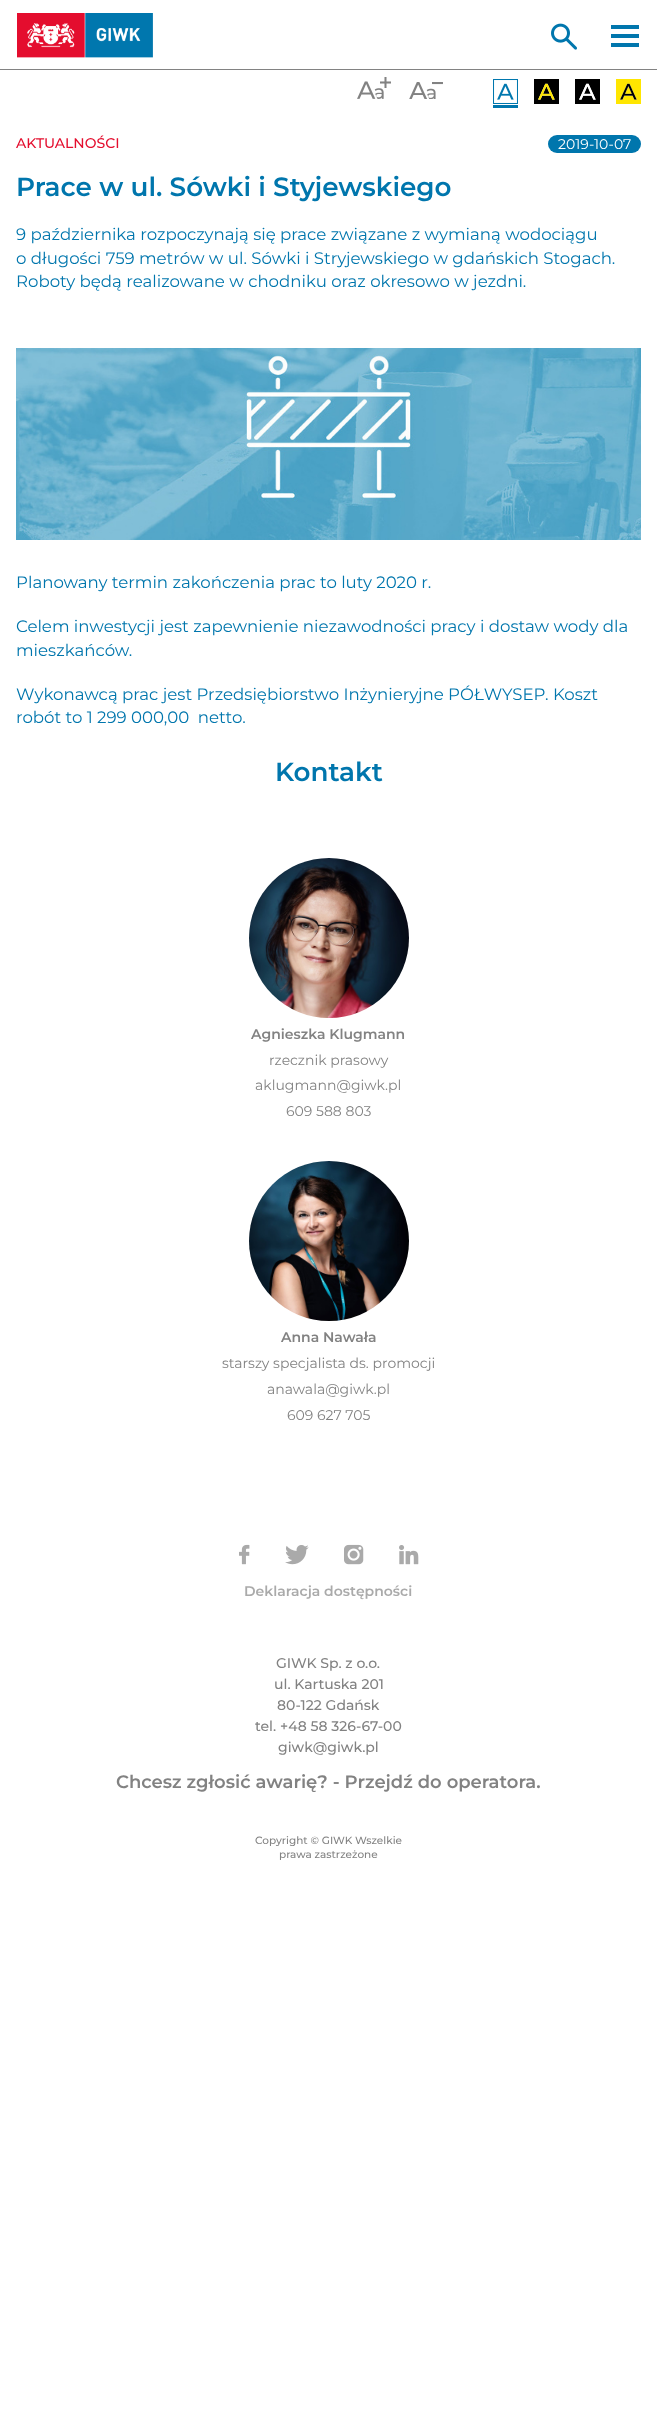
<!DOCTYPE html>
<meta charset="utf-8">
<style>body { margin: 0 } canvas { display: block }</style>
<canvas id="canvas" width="657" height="2409"></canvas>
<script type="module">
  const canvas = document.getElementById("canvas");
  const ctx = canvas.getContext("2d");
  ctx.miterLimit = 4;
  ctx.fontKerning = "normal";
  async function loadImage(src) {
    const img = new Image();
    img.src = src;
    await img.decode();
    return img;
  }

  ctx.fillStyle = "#ffffff";
  ctx.fillRect(0, 0, 657, 2409);
  ctx.drawImage(await loadImage("img1.png"), 17, 13, 136, 45);
  ctx.drawImage(await loadImage("img2.png"), 357, 77, 34, 22);
  ctx.drawImage(await loadImage("img3.png"), 409, 82, 34, 17);
  ctx.drawImage(await loadImage("img4.png"), 493, 79, 25, 25);
  ctx.fillStyle = "#0076ad";
  ctx.fillRect(493, 105, 25, 3);
  ctx.drawImage(await loadImage("img5.png"), 534, 79, 25, 25);
  ctx.drawImage(await loadImage("img6.png"), 575, 79, 25, 25);
  ctx.drawImage(await loadImage("img7.png"), 616, 79, 25, 25);
  ctx.drawImage(await loadImage("img8.png"), 551, 23, 26, 27);
  ctx.fillRect(611, 34, 28, 4);
  ctx.fillRect(611, 25, 28, 4);
  ctx.fillRect(611, 43, 28, 4);
  ctx.fillStyle = "#828282";
  ctx.fillRect(0, 69, 657, 1);
  ctx.font = "500 14px Montserrat";
  ctx.fillStyle = "#e40e2e";
  ctx.fillText("AKTUALNOŚCI", 16, 148);
  ctx.fillStyle = "#0076ad";
  ctx.beginPath();
  ctx.roundRect(548, 135, 93, 18, 9);
  ctx.fill();
  ctx.font = "14px Montserrat";
  ctx.fillStyle = "#ffffff";
  ctx.fillText("2019-10-07", 558, 149);
  ctx.font = "600 26.25px Montserrat";
  ctx.fillStyle = "#0076ad";
  ctx.fillText("Prace w ul. Sówki i Styjewskiego", 16, 196);
  ctx.font = "16.6px Montserrat";
  ctx.fillText("9 października rozpoczynają się prace związane z wymianą wodociągu", 16, 240);
  ctx.fillText("o długości 759 metrów w ul. Sówki i Stryjewskiego w gdańskich Stogach.", 16, 264);
  ctx.fillText("Roboty będą realizowane w chodniku oraz okresowo w jezdni.", 16, 287);
  ctx.drawImage(await loadImage("img9.png"), 16, 348, 625, 192);
  ctx.fillText("Planowany termin zakończenia prac to luty 2020 r.", 16, 588);
  ctx.fillText("Celem inwestycji jest zapewnienie niezawodności pracy i dostaw wody dla", 16, 632);
  ctx.fillText("mieszkańców.", 16, 656);
  ctx.fillText("Wykonawcą prac jest Przedsiębiorstwo Inżynieryjne PÓŁWYSEP. Koszt", 16, 700);
  ctx.fillText("robót to 1 299 000,00  netto.", 16, 723);
  ctx.font = "600 26.25px Montserrat";
  ctx.fillText("Kontakt", 275, 781);
  ctx.drawImage(await loadImage("img10.png"), 249, 858, 160, 160);
  ctx.font = "600 14px Montserrat";
  ctx.fillStyle = "#828282";
  ctx.fillText("Agnieszka Klugmann", 251, 1039);
  ctx.font = "14px Montserrat";
  ctx.fillText("rzecznik prasowy", 269, 1065);
  ctx.fillText("aklugmann@giwk.pl", 255, 1090);
  ctx.fillText("609 588 803", 286, 1116);
  ctx.drawImage(await loadImage("img11.png"), 249, 1161, 160, 160);
  ctx.font = "600 14px Montserrat";
  ctx.fillText("Anna Nawała", 281, 1342);
  ctx.font = "14px Montserrat";
  ctx.fillText("starszy specjalista ds. promocji", 222, 1368);
  ctx.fillText("anawala@giwk.pl", 267, 1394);
  ctx.fillText("609 627 705", 287, 1420);
  ctx.drawImage(await loadImage("img12.png"), 239, 1544, 11, 21);
  ctx.drawImage(await loadImage("img13.png"), 285, 1545, 24, 20);
  ctx.drawImage(await loadImage("img14.png"), 344, 1544, 20, 21);
  ctx.drawImage(await loadImage("img15.png"), 399, 1545, 20, 20);
  ctx.font = "600 14px Montserrat";
  ctx.fillStyle = "#aaaaaa";
  ctx.fillText("Deklaracja dostępności", 244, 1596);
  ctx.font = "500 14px Montserrat";
  ctx.fillStyle = "#828282";
  ctx.fillText("GIWK Sp. z o.o.", 276, 1668);
  ctx.fillText("ul. Kartuska 201", 274, 1689);
  ctx.fillText("80-122 Gdańsk", 277, 1710);
  ctx.fillText("tel. +48 58 326-67-00", 255, 1731);
  ctx.fillText("giwk@giwk.pl", 278, 1752);
  ctx.font = "600 18px Montserrat";
  ctx.fillText("Chcesz zgłosić awarię? - Przejdź do operatora.", 116, 1788);
  ctx.font = "500 10.5px Montserrat";
  ctx.fillText("Copyright © GIWK Wszelkie", 255, 1844);
  ctx.fillText("prawa zastrzeżone", 279, 1858);
</script>
